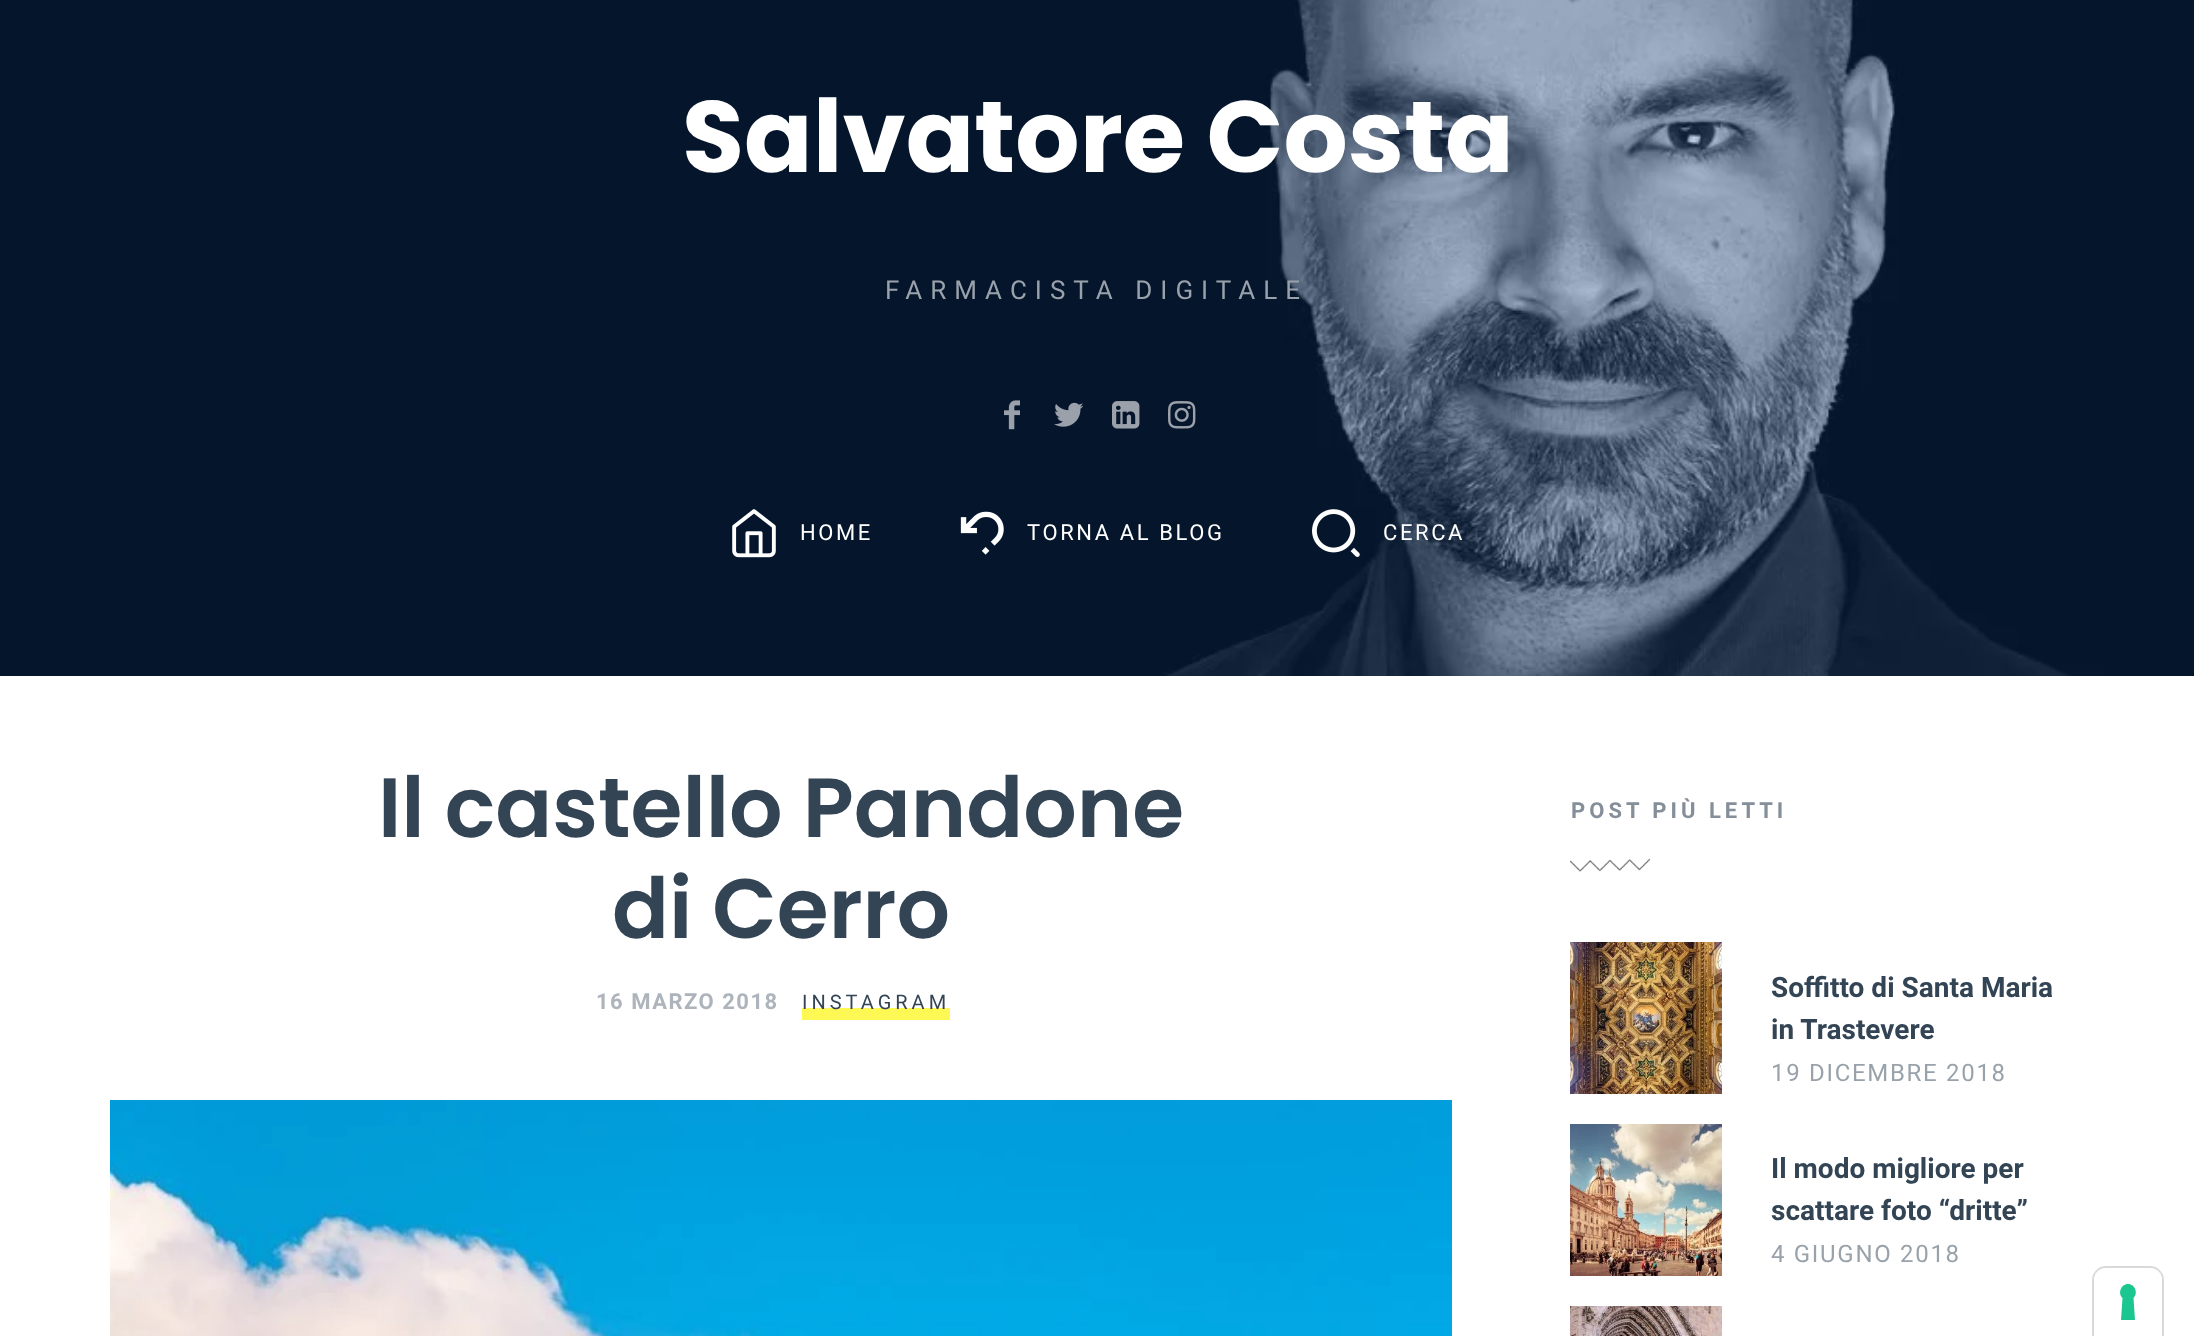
<!DOCTYPE html>
<meta charset="utf-8">
<style>body { margin: 0 } canvas { display: block }</style>
<canvas id="canvas" width="2194" height="1336"></canvas>
<script type="module">
  const canvas = document.getElementById("canvas");
  const ctx = canvas.getContext("2d");
  ctx.miterLimit = 4;
  ctx.fontKerning = "normal";
  async function loadImage(src) {
    const img = new Image();
    img.src = src;
    await img.decode();
    return img;
  }

  ctx.fillStyle = "#ffffff";
  ctx.fillRect(0, 0, 2194, 1336);
  ctx.drawImage(await loadImage("img1.png"), 0, 0, 2194, 676);
  ctx.font = "bold 101px Poppins";
  ctx.fillText("Salvatore Costa", 682, 172);
  ctx.letterSpacing = "8px";
  ctx.font = "26px Roboto";
  ctx.fillStyle = "#99a2aa";
  ctx.fillText("FARMACISTA DIGITALE", 885, 299);
  ctx.drawImage(await loadImage("img2.png"), 1004, 400, 16, 30);
  ctx.drawImage(await loadImage("img3.png"), 1054, 402, 30, 25);
  ctx.drawImage(await loadImage("img4.png"), 1112, 401, 28, 28);
  ctx.drawImage(await loadImage("img5.png"), 1168, 401, 28, 28);
  ctx.drawImage(await loadImage("img6.png"), 732, 509, 44, 49);
  ctx.letterSpacing = "2.6px";
  ctx.font = "22px Roboto";
  ctx.fillStyle = "#ffffff";
  ctx.fillText("HOME", 800, 540);
  ctx.drawImage(await loadImage("img7.png"), 960, 511, 44, 44);
  ctx.fillText("TORNA AL BLOG", 1027, 540);
  ctx.drawImage(await loadImage("img8.png"), 1312, 509, 48, 48);
  ctx.fillText("CERCA", 1383, 540);
  ctx.letterSpacing = "0px";
  ctx.font = "600 84px Poppins";
  ctx.fillStyle = "#334455";
  ctx.fillText("Il castello Pandone", 378, 837);
  ctx.fillText("di Cerro", 612, 938);
  ctx.letterSpacing = "1.5px";
  ctx.font = "bold 22px Roboto";
  ctx.fillStyle = "#adb4bb";
  ctx.fillText("16 MARZO 2018", 596, 1009);
  ctx.fillStyle = "#fdf854";
  ctx.fillRect(802, 1008, 148, 12);
  ctx.letterSpacing = "4px";
  ctx.font = "20px Roboto";
  ctx.fillStyle = "#334455";
  ctx.fillText("INSTAGRAM", 802, 1009);
  ctx.drawImage(await loadImage("img9.png"), 110, 1100, 1342, 236);
  ctx.font = "bold 22px Roboto";
  ctx.fillStyle = "#858f99";
  ctx.fillText("POST PIÙ LETTI", 1571, 818);
  ctx.drawImage(await loadImage("img10.png"), 1570, 858, 80, 14);
  ctx.drawImage(await loadImage("img11.png"), 1570, 942, 152, 152);
  ctx.letterSpacing = "0px";
  ctx.font = "bold 28px Roboto";
  ctx.fillStyle = "#334455";
  ctx.fillText("Soffitto di Santa Maria", 1771, 997);
  ctx.fillText("in Trastevere", 1771, 1039);
  ctx.letterSpacing = "1.7px";
  ctx.font = "24px Roboto";
  ctx.fillStyle = "#99a2aa";
  ctx.fillText("19 DICEMBRE 2018", 1771, 1081);
  ctx.drawImage(await loadImage("img12.png"), 1570, 1124, 152, 152);
  ctx.letterSpacing = "0px";
  ctx.font = "bold 28px Roboto";
  ctx.fillStyle = "#334455";
  ctx.fillText("Il modo migliore per", 1771, 1178);
  ctx.fillText("scattare foto “dritte”", 1771, 1220);
  ctx.letterSpacing = "1.7px";
  ctx.font = "24px Roboto";
  ctx.fillStyle = "#99a2aa";
  ctx.fillText("4 GIUGNO 2018", 1771, 1262);
  ctx.drawImage(await loadImage("img13.png"), 1570, 1306, 152, 30);
  ctx.beginPath();
  ctx.moveTo(2106, 1267);
  ctx.lineTo(2150, 1267);
  ctx.bezierCurveTo(2157, 1267, 2163, 1273, 2163, 1280);
  ctx.lineTo(2163, 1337);
  ctx.lineTo(2093, 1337);
  ctx.lineTo(2093, 1280);
  ctx.bezierCurveTo(2093, 1273, 2099, 1267, 2106, 1267);
  ctx.closePath();
  ctx.strokeStyle = "#d9d9d9";
  ctx.lineWidth = 2;
  ctx.stroke();
  ctx.fillStyle = "#ffffff";
  ctx.beginPath();
  ctx.roundRect(2094, 1268, 68, 68, [12, 12, 0, 0]);
  ctx.fill();
  ctx.fillStyle = "#1cc691";
  ctx.beginPath();
  ctx.moveTo(2128, 1284);
  ctx.bezierCurveTo(2135, 1284, 2138.5, 1293.5, 2133.5, 1298);
  ctx.lineTo(2135, 1320);
  ctx.lineTo(2121, 1320);
  ctx.lineTo(2122.5, 1298);
  ctx.bezierCurveTo(2117.5, 1293.5, 2121, 1284, 2128, 1284);
  ctx.closePath();
  ctx.fill("evenodd");
</script>
